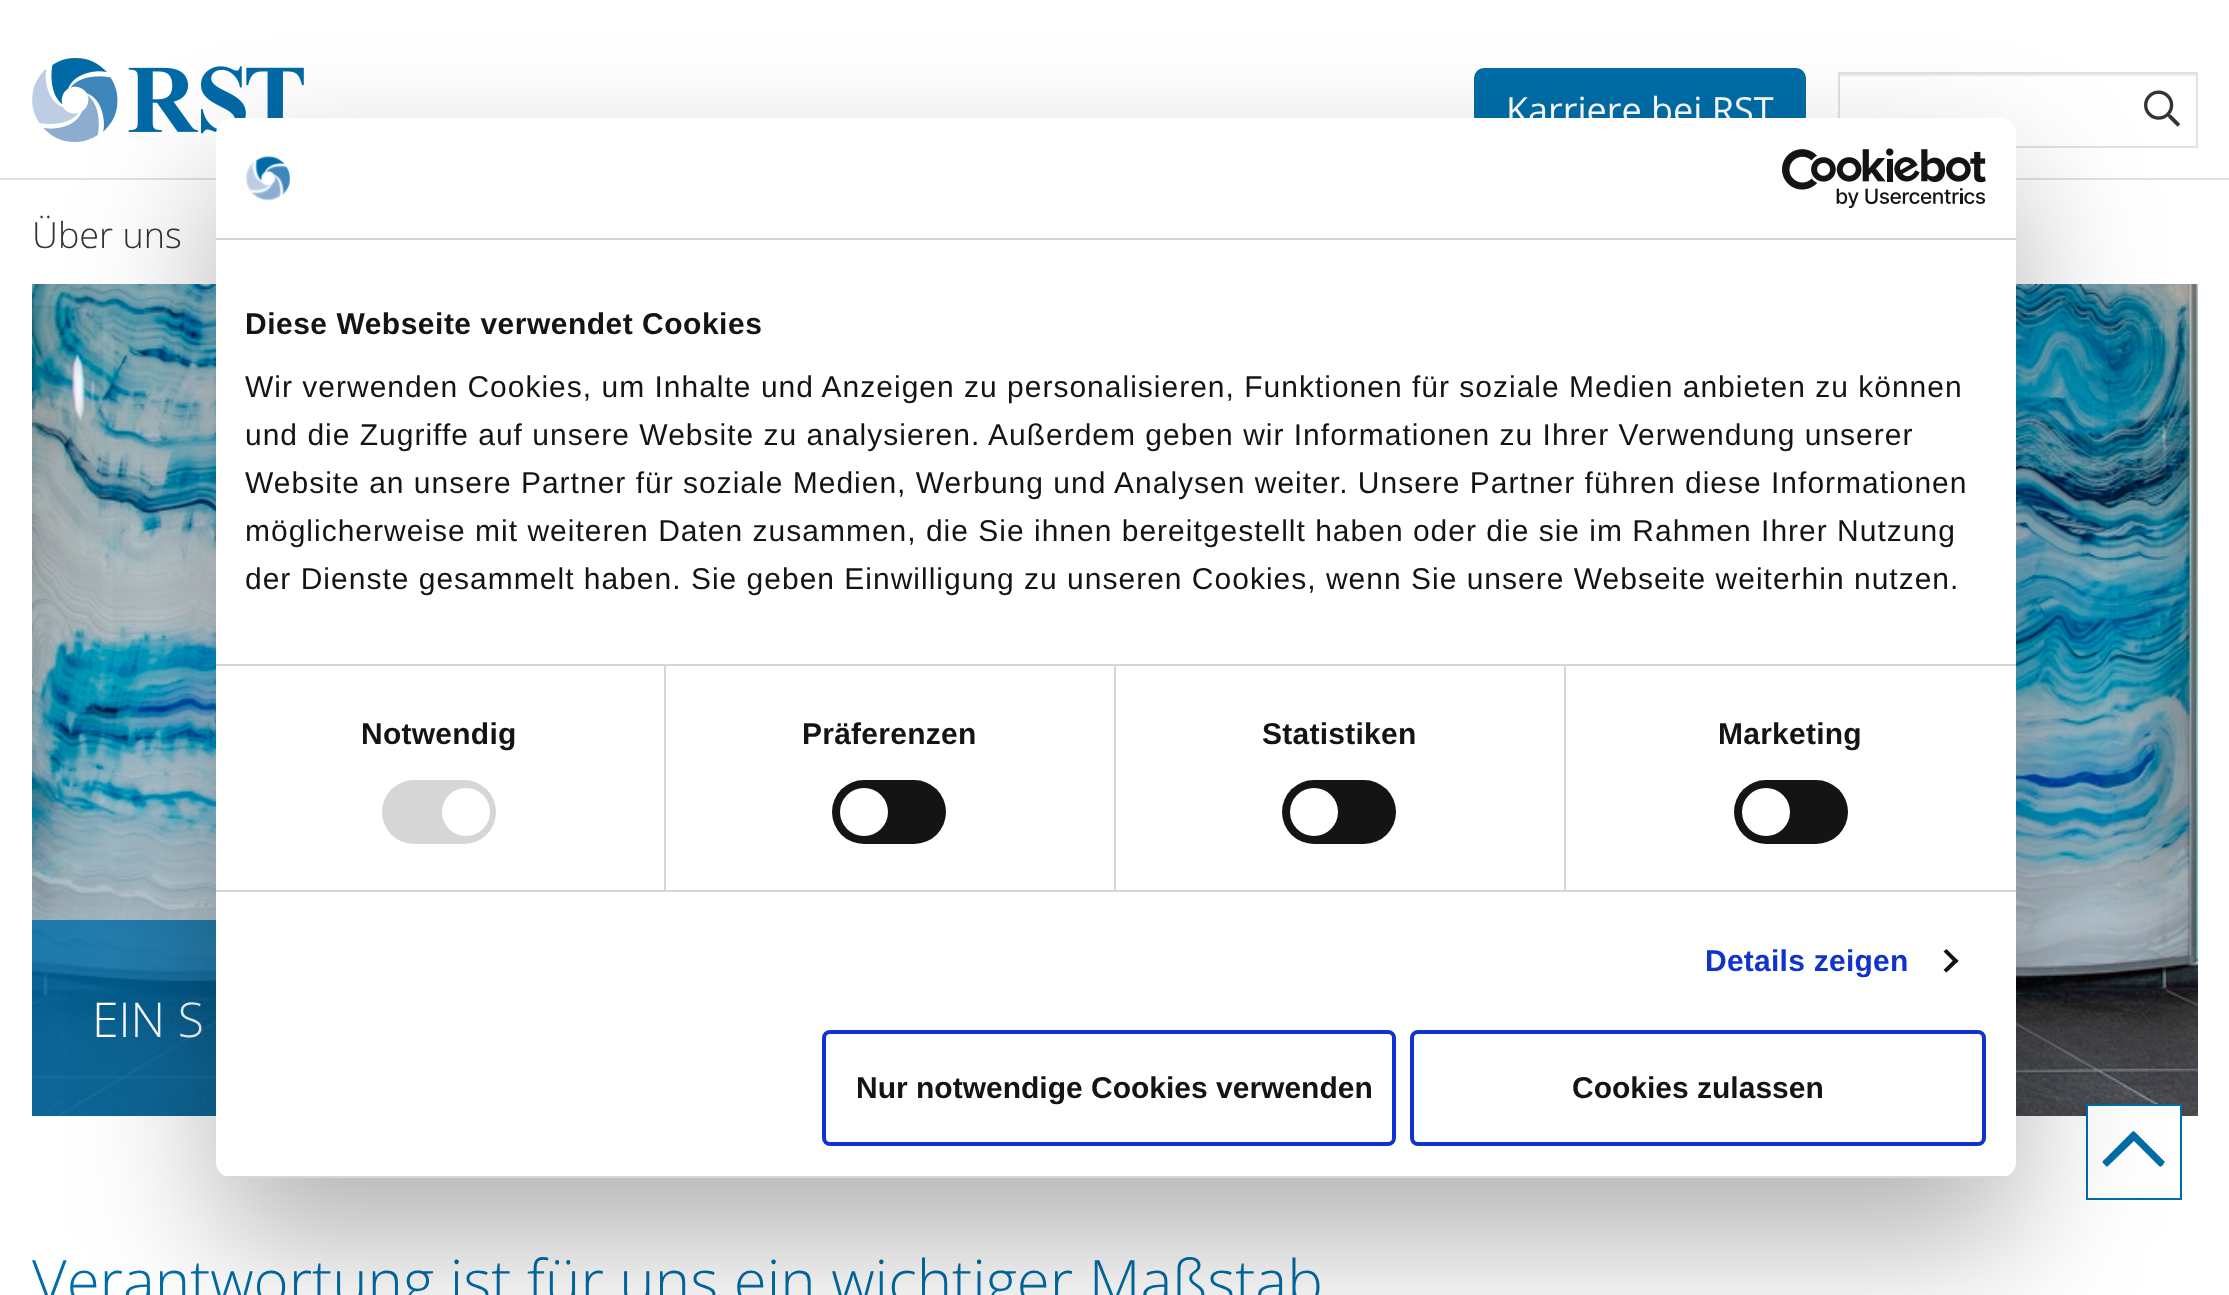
<!DOCTYPE html>
<meta charset="utf-8">
<style>body { margin: 0 } canvas { display: block }</style>
<canvas id="canvas" width="2229" height="1295"></canvas>
<script type="module">
  const canvas = document.getElementById("canvas");
  const ctx = canvas.getContext("2d");
  ctx.miterLimit = 4;
  ctx.fontKerning = "normal";
  async function loadImage(src) {
    const img = new Image();
    img.src = src;
    await img.decode();
    return img;
  }

  ctx.fillStyle = "#ffffff";
  ctx.fillRect(0, 0, 2229, 1295);
  ctx.fillStyle = "#e1e1e1";
  ctx.fillRect(0, 178, 2229, 2);
  ctx.drawImage(await loadImage("img1.png"), 32, 58, 272, 84);
  ctx.fillStyle = "#006da8";
  ctx.beginPath();
  ctx.roundRect(1474, 68, 332, 84, 10);
  ctx.fill();
  ctx.font = "36px Open Sans";
  ctx.fillStyle = "#ffffff";
  ctx.fillText("Karriere bei RST", 1506, 123);
  ctx.fillStyle = "#ececec";
  ctx.fillRect(1840, 74, 356, 2);
  ctx.strokeStyle = "#e1e1e1";
  ctx.lineWidth = 2;
  ctx.strokeRect(1839, 73, 358, 74);
  ctx.drawImage(await loadImage("img2.png"), 2144, 90, 36, 37);
  ctx.font = "300 36px Open Sans";
  ctx.fillStyle = "#333333";
  ctx.fillText("Über uns", 32, 248);
  ctx.drawImage(await loadImage("img3.png"), 32, 284, 2166, 832);
  ctx.fillStyle = "rgba(0, 109, 168, 0.8)";
  ctx.fillRect(32, 920, 184, 196);
  ctx.font = "300 48px Open Sans";
  ctx.fillStyle = "#ffffff";
  ctx.fillText("EIN S", 92, 1037);
  ctx.font = "300 60px Open Sans";
  ctx.fillStyle = "#006da8";
  ctx.fillText("Verantwortung ist für uns ein wichtiger Maßstab", 32, 1303);
  ctx.fillStyle = "#ffffff";
  ctx.fillRect(2088, 1106, 92, 10);
  ctx.strokeStyle = "#006da8";
  ctx.strokeRect(2087, 1105, 94, 94);
  ctx.fillStyle = "#006da8";
  ctx.beginPath();
  ctx.moveTo(2103, 1163);
  ctx.bezierCurveTo(2101, 1161, 2106, 1159, 2108, 1156);
  ctx.lineTo(2133, 1131);
  ctx.lineTo(2135, 1132);
  ctx.lineTo(2165, 1162);
  ctx.lineTo(2164, 1163);
  ctx.bezierCurveTo(2163, 1165, 2161, 1168, 2159, 1166);
  ctx.lineTo(2134, 1141);
  ctx.lineTo(2108, 1166);
  ctx.bezierCurveTo(2107, 1167, 2107, 1167, 2106, 1166);
  ctx.closePath();
  ctx.fill();
  ctx.fillStyle = "rgba(0, 0, 0, 0.3)";
  ctx.filter = "blur(68px)";
  ctx.beginPath();
  ctx.roundRect(216, 182, 1800, 1060, 16);
  ctx.fill();
  ctx.filter = "none";
  ctx.fillStyle = "#ffffff";
  ctx.beginPath();
  ctx.roundRect(216, 118, 1800, 1060, 16);
  ctx.fill();
  ctx.fillStyle = "#d6d6d6";
  ctx.fillRect(216, 238, 1800, 2);
  ctx.drawImage(await loadImage("img4.png"), 246, 156, 44, 45);
  ctx.drawImage(await loadImage("img5.png"), 1782, 148, 204, 60);
  ctx.fillRect(216, 664, 1800, 2);
  ctx.letterSpacing = "0.5px";
  ctx.font = "bold 30px Liberation Sans";
  ctx.fillStyle = "#141414";
  ctx.fillText("Diese Webseite verwendet Cookies", 245, 334);
  ctx.letterSpacing = "1px";
  ctx.font = "30px Liberation Sans";
  ctx.fillText("Wir verwenden Cookies, um Inhalte und Anzeigen zu personalisieren, Funktionen für soziale Medien anbieten zu können", 245, 397);
  ctx.fillText("und die Zugriffe auf unsere Website zu analysieren. Außerdem geben wir Informationen zu Ihrer Verwendung unserer", 245, 445);
  ctx.fillText("Website an unsere Partner für soziale Medien, Werbung und Analysen weiter. Unsere Partner führen diese Informationen", 245, 493);
  ctx.fillText("möglicherweise mit weiteren Daten zusammen, die Sie ihnen bereitgestellt haben oder die sie im Rahmen Ihrer Nutzung", 245, 541);
  ctx.fillText("der Dienste gesammelt haben. Sie geben Einwilligung zu unseren Cookies, wenn Sie unsere Webseite weiterhin nutzen.", 245, 589);
  ctx.fillStyle = "#d6d6d6";
  ctx.fillRect(216, 890, 1800, 2);
  ctx.fillRect(664, 666, 2, 224);
  ctx.letterSpacing = "0.25px";
  ctx.font = "bold 30px Liberation Sans";
  ctx.fillStyle = "#141414";
  ctx.fillText("Notwendig", 361, 744);
  ctx.fillStyle = "#d6d6d6";
  ctx.beginPath();
  ctx.roundRect(382, 780, 114, 64, 32);
  ctx.fill();
  ctx.fillStyle = "#ffffff";
  ctx.beginPath();
  ctx.arc(466, 812, 24, 0, Math.PI * 2);
  ctx.fill();
  ctx.fillStyle = "#d6d6d6";
  ctx.fillRect(1114, 666, 2, 224);
  ctx.fillStyle = "#141414";
  ctx.fillText("Präferenzen", 802, 744);
  ctx.beginPath();
  ctx.roundRect(832, 780, 114, 64, 32);
  ctx.fill();
  ctx.fillStyle = "#ffffff";
  ctx.beginPath();
  ctx.arc(864, 812, 24, 0, Math.PI * 2);
  ctx.fill();
  ctx.fillStyle = "#d6d6d6";
  ctx.fillRect(1564, 666, 2, 224);
  ctx.fillStyle = "#141414";
  ctx.fillText("Statistiken", 1262, 744);
  ctx.beginPath();
  ctx.roundRect(1282, 780, 114, 64, 32);
  ctx.fill();
  ctx.fillStyle = "#ffffff";
  ctx.beginPath();
  ctx.arc(1314, 812, 24, 0, Math.PI * 2);
  ctx.fill();
  ctx.fillStyle = "#141414";
  ctx.fillText("Marketing", 1718, 744);
  ctx.beginPath();
  ctx.roundRect(1734, 780, 114, 64, 32);
  ctx.fill();
  ctx.fillStyle = "#ffffff";
  ctx.beginPath();
  ctx.arc(1766, 812, 24, 0, Math.PI * 2);
  ctx.fill();
  ctx.fillStyle = "#1032cf";
  ctx.fillText("Details zeigen", 1705, 971);
  ctx.fillStyle = "#141414";
  ctx.beginPath();
  ctx.moveTo(1946.5, 949);
  ctx.lineTo(1958.5, 961);
  ctx.lineTo(1955.5, 963.5);
  ctx.lineTo(1943.5, 951.5);
  ctx.closePath();
  ctx.fill();
  ctx.beginPath();
  ctx.moveTo(1955.5, 958);
  ctx.lineTo(1958.5, 961);
  ctx.lineTo(1946.5, 972.5);
  ctx.lineTo(1943.5, 970);
  ctx.closePath();
  ctx.fill();
  ctx.save();
  ctx.beginPath();
  ctx.roundRect(216, 118, 1800, 1060, 16);
  ctx.clip();
  ctx.fillStyle = "#d6d6d6";
  ctx.fillRect(216, 1176, 1800, 2);
  ctx.restore();
  ctx.beginPath();
  ctx.roundRect(824, 1032, 570, 112, 6);
  ctx.strokeStyle = "#1032cf";
  ctx.lineWidth = 4;
  ctx.stroke();
  ctx.letterSpacing = "0px";
  ctx.fillText("Nur notwendige Cookies verwenden", 856, 1098);
  ctx.beginPath();
  ctx.roundRect(1412, 1032, 572, 112, 6);
  ctx.stroke();
  ctx.fillText("Cookies zulassen", 1572, 1098);
</script>
